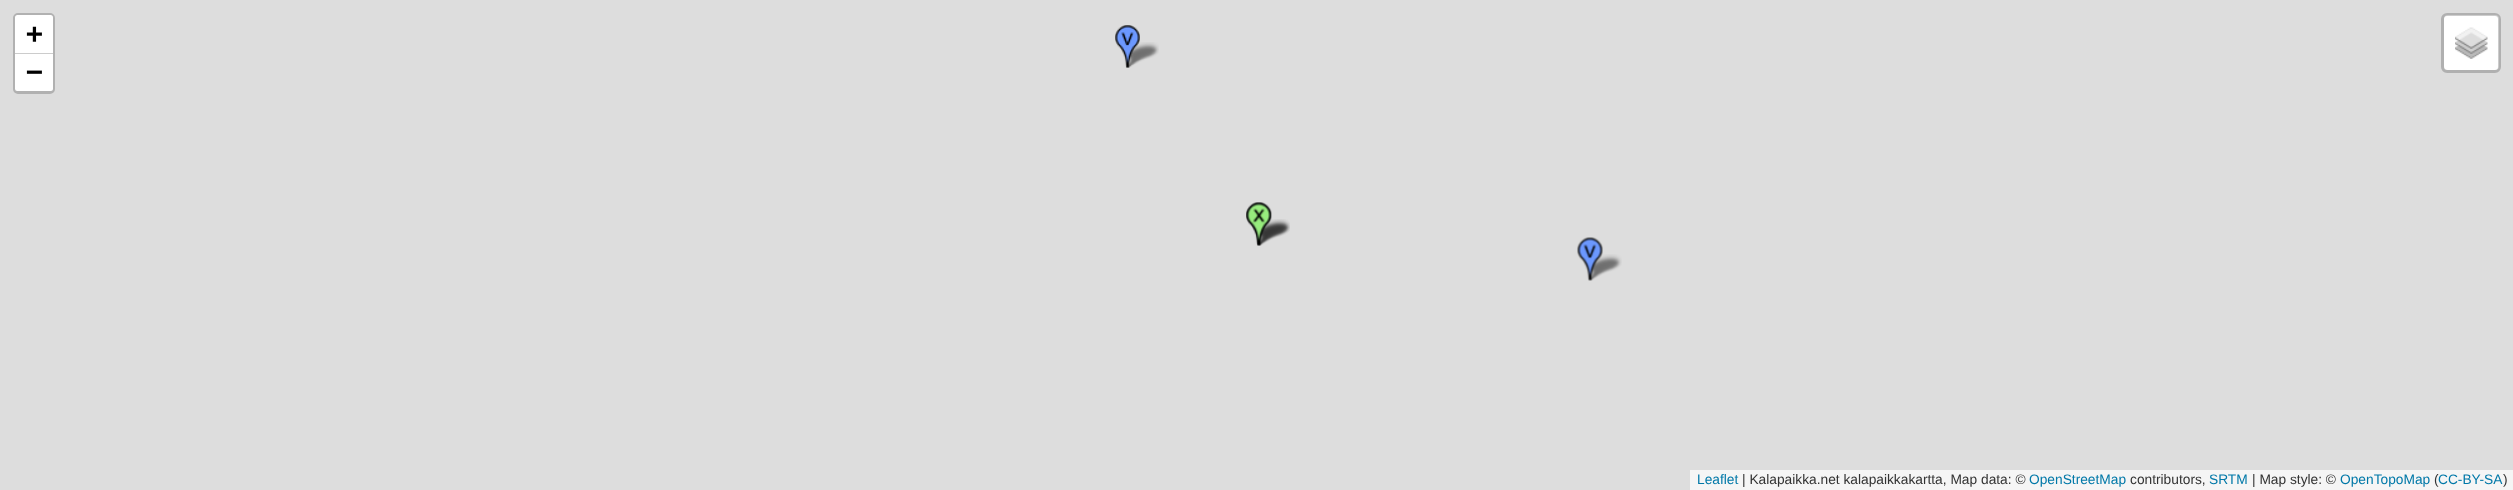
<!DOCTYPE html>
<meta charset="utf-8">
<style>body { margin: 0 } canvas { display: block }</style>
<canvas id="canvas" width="2513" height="490"></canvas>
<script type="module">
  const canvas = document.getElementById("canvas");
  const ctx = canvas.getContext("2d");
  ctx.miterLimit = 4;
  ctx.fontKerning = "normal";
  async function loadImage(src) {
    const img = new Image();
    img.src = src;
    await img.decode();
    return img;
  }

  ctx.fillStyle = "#dddddd";
  ctx.fillRect(0, 0, 2513, 490);
  ctx.drawImage(await loadImage("img5.png"), 1126, 42, 33, 26);
  ctx.drawImage(await loadImage("img1.png"), 1115, 25, 25, 43);
  ctx.drawImage(await loadImage("img6.png"), 1257, 219, 33, 27);
  ctx.drawImage(await loadImage("img7.png"), 1257, 219, 33, 27);
  ctx.drawImage(await loadImage("img2.png"), 1246, 202, 26, 44);
  ctx.drawImage(await loadImage("img3.png"), 1246, 202, 26, 44);
  ctx.drawImage(await loadImage("img8.png"), 1588, 254, 34, 27);
  ctx.drawImage(await loadImage("img4.png"), 1577, 237, 26, 44);
  ctx.beginPath();
  ctx.roundRect(14.5, 14.5, 39, 78, 3.5);
  ctx.strokeStyle = "#b1b1b1";
  ctx.lineWidth = 3;
  ctx.stroke();
  ctx.fillStyle = "#ffffff";
  ctx.beginPath();
  ctx.roundRect(15, 15, 38, 39, [2.5, 2.5, 0, 0]);
  ctx.fill();
  ctx.fillStyle = "#cccccc";
  ctx.fillRect(15, 53, 38, 1);
  ctx.font = "bold 28px DejaVu Sans Mono";
  ctx.fillStyle = "#000000";
  ctx.fillText("+", 26, 43);
  ctx.fillStyle = "#ffffff";
  ctx.beginPath();
  ctx.roundRect(15, 54, 38, 37, [0, 0, 2.5, 2.5]);
  ctx.fill();
  ctx.fillStyle = "#000000";
  ctx.fillText("−", 26, 81);
  ctx.fillStyle = "#ffffff";
  ctx.beginPath();
  ctx.roundRect(2444, 15, 55, 55, 4);
  ctx.fill();
  ctx.beginPath();
  ctx.roundRect(2442.5, 14.5, 57, 57, 4.5);
  ctx.strokeStyle = "rgba(0, 0, 0, 0.2)";
  ctx.stroke();
  ctx.drawImage(await loadImage("img9.png"), 2455, 27, 33, 32);
  ctx.fillStyle = "#f5f5f5";
  ctx.fillRect(1690, 470, 823, 20);
  ctx.font = "13.75px Liberation Sans";
  ctx.fillStyle = "#0078a8";
  ctx.fillText("Leaflet", 1697, 484);
  ctx.fillStyle = "#333333";
  ctx.fillText("| Kalapaikka.net kalapaikkakartta, Map data: ©", 1742, 484);
  ctx.fillStyle = "#0078a8";
  ctx.fillText("OpenStreetMap", 2029, 484);
  ctx.fillStyle = "#333333";
  ctx.fillText("contributors,", 2130, 484);
  ctx.fillStyle = "#0078a8";
  ctx.fillText("SRTM", 2209, 484);
  ctx.fillStyle = "#333333";
  ctx.fillText("| Map style: ©", 2252, 484);
  ctx.fillStyle = "#0078a8";
  ctx.fillText("OpenTopoMap", 2340, 484);
  ctx.fillStyle = "#333333";
  ctx.fillText("(", 2434, 484);
  ctx.fillStyle = "#0078a8";
  ctx.fillText("CC-BY-SA", 2438, 484);
  ctx.fillStyle = "#333333";
  ctx.fillText(")", 2503, 484);
</script>
